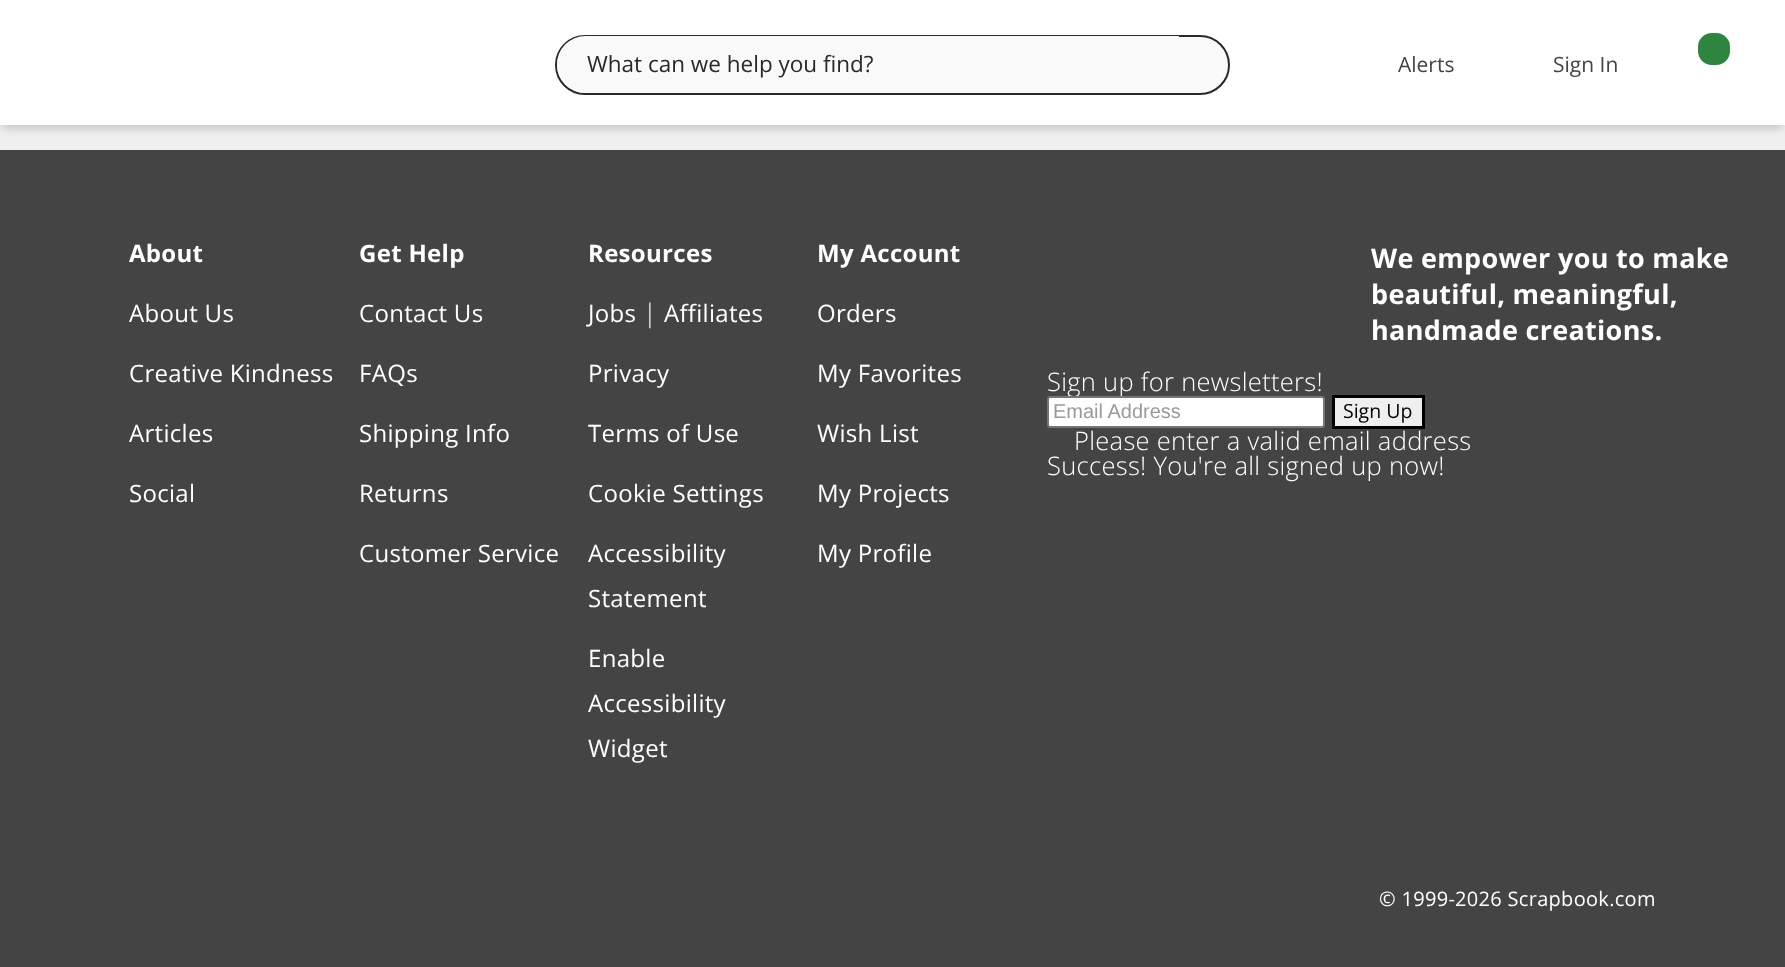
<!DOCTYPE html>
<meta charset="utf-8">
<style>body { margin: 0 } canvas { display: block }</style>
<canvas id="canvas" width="1785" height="967"></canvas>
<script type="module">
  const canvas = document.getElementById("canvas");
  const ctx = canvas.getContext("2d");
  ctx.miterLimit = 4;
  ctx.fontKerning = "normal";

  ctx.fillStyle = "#444444";
  ctx.fillRect(0, 0, 1785, 967);
  ctx.fillStyle = "#ffffff";
  ctx.fillRect(0, 0, 1785, 110);
  ctx.fillStyle = "#f9f9f9";
  ctx.beginPath();
  ctx.roundRect(556, 36, 673, 58, 29);
  ctx.fill();
  ctx.strokeStyle = "#292929";
  ctx.lineWidth = 2;
  ctx.stroke();
  ctx.beginPath();
  ctx.roundRect(557, 36, 622, 57, [28.5, 0, 0, 28.5]);
  ctx.fill();
  ctx.font = "22.5px Open Sans";
  ctx.fillStyle = "#292929";
  ctx.fillText("What can we help you find?", 587, 72);
  ctx.font = "21px Open Sans";
  ctx.fillStyle = "#444444";
  ctx.fillText("Alerts", 1398, 72);
  ctx.fillText("Sign In", 1553, 72);
  ctx.fillStyle = "#2e853f";
  ctx.beginPath();
  ctx.roundRect(1696.5, 31.5, 35, 35, 15.5);
  ctx.fill();
  ctx.strokeStyle = "#ffffff";
  ctx.lineWidth = 3;
  ctx.stroke();
  ctx.fillStyle = "#efefef";
  ctx.fillRect(0, 125, 1785, 25);
  ctx.fillStyle = "rgba(0, 0, 0, 0.2)";
  ctx.filter = "blur(4.5px)";
  ctx.beginPath();
  ctx.rect(3, 119, 1779, 9);
  ctx.fill();
  ctx.filter = "none";
  ctx.fillStyle = "#ffffff";
  ctx.fillRect(0, 110, 1785, 15);
  ctx.letterSpacing = "0.3px";
  ctx.font = "bold 24px Open Sans";
  ctx.fillText("About", 129, 262);
  ctx.font = "24px Open Sans";
  ctx.fillText("About Us", 129, 322);
  ctx.fillText("Creative Kindness", 129, 382);
  ctx.fillText("Articles", 129, 442);
  ctx.fillText("Social", 129, 502);
  ctx.font = "bold 24px Open Sans";
  ctx.fillText("Get Help", 359, 262);
  ctx.font = "24px Open Sans";
  ctx.fillText("Contact Us", 359, 322);
  ctx.fillText("FAQs", 359, 382);
  ctx.fillText("Shipping Info", 359, 442);
  ctx.fillText("Returns", 359, 502);
  ctx.fillText("Customer Service", 359, 562);
  ctx.font = "bold 24px Open Sans";
  ctx.fillText("Resources", 588, 262);
  ctx.font = "24px Open Sans";
  ctx.fillText("Jobs", 588, 322);
  ctx.font = "300 25.5px Open Sans";
  ctx.fillText("|", 643, 322);
  ctx.font = "24px Open Sans";
  ctx.fillText("Affiliates", 664, 322);
  ctx.fillText("Privacy", 588, 382);
  ctx.fillText("Terms of Use", 588, 442);
  ctx.fillText("Cookie Settings", 588, 502);
  ctx.fillText("Accessibility", 588, 562);
  ctx.fillText("Statement", 588, 607);
  ctx.fillText("Enable", 588, 667);
  ctx.fillText("Accessibility", 588, 712);
  ctx.fillText("Widget", 588, 757);
  ctx.font = "bold 24px Open Sans";
  ctx.fillText("My Account", 817, 262);
  ctx.font = "24px Open Sans";
  ctx.fillText("Orders", 817, 322);
  ctx.fillText("My Favorites", 817, 382);
  ctx.fillText("Wish List", 817, 442);
  ctx.fillText("My Projects", 817, 502);
  ctx.fillText("My Profile", 817, 562);
  ctx.font = "bold 27px Open Sans";
  ctx.fillText("We empower you to make", 1371, 268);
  ctx.fillText("beautiful, meaningful,", 1371, 304);
  ctx.fillText("handmade creations.", 1371, 340);
  ctx.font = "300 25.5px Open Sans";
  ctx.fillText("Sign up for newsletters!", 1047, 391);
  ctx.beginPath();
  ctx.roundRect(1048, 397, 276, 30, 2);
  ctx.fill();
  ctx.strokeStyle = "#767676";
  ctx.lineWidth = 2;
  ctx.stroke();
  ctx.letterSpacing = "0px";
  ctx.font = "20px Liberation Sans";
  ctx.fillStyle = "#9a9a9a";
  ctx.fillText("Email Address", 1053, 418);
  ctx.fillStyle = "#efefef";
  ctx.beginPath();
  ctx.rect(1333.5, 396.5, 90, 31);
  ctx.fill();
  ctx.strokeStyle = "#000000";
  ctx.lineWidth = 3;
  ctx.stroke();
  ctx.font = "19.5px Open Sans";
  ctx.fillStyle = "#000000";
  ctx.fillText("Sign Up", 1343, 418);
  ctx.letterSpacing = "0.3px";
  ctx.font = "300 25.5px Open Sans";
  ctx.fillStyle = "#ffffff";
  ctx.fillText("Please enter a valid email address", 1074, 450);
  ctx.fillText("Success! You're all signed up now!", 1047, 475);
  ctx.font = "20px Open Sans";
  ctx.fillText("© 1999-2026 Scrapbook.com", 1379, 906);
</script>
